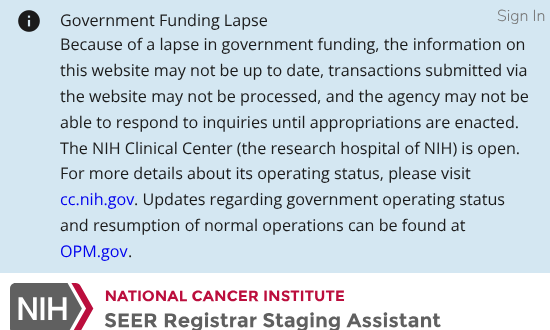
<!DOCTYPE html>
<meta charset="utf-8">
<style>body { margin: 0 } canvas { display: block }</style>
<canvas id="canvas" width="550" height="330"></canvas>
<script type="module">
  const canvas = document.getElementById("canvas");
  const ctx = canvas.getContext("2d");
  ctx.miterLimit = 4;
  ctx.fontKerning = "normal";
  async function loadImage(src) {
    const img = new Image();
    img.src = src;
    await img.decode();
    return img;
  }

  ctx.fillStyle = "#ffffff";
  ctx.fillRect(0, 0, 550, 330);
  ctx.fillStyle = "#d4e7f2";
  ctx.fillRect(0, 0, 550, 273);
  ctx.font = "200 16px Nunito";
  ctx.fillStyle = "#767676";
  ctx.fillText("Sign In", 497, 21);
  ctx.drawImage(await loadImage("img1.png"), 10, 283, 431, 47);
  ctx.drawImage(await loadImage("img2.png"), 18, 10, 22, 22);
  ctx.font = "16.15px Open Sans";
  ctx.fillStyle = "#1b1b1b";
  ctx.fillText("Government Funding Lapse", 60, 26);
  ctx.fillText("Because of a lapse in government funding, the information on", 60, 50);
  ctx.fillText("this website may not be up to date, transactions submitted via", 60, 76);
  ctx.fillText("the website may not be processed, and the agency may not be", 60, 102);
  ctx.fillText("able to respond to inquiries until appropriations are enacted.", 60, 128);
  ctx.fillText("The NIH Clinical Center (the research hospital of NIH) is open.", 60, 154);
  ctx.fillText("For more details about its operating status, please visit", 60, 179);
  ctx.fillStyle = "#0000ee";
  ctx.fillText("cc.nih.gov", 60, 205);
  ctx.fillStyle = "#1b1b1b";
  ctx.fillText(". Updates regarding government operating status", 134, 205);
  ctx.fillText("and resumption of normal operations can be found at", 60, 231);
  ctx.fillStyle = "#0000ee";
  ctx.fillText("OPM.gov", 60, 257);
  ctx.fillStyle = "#1b1b1b";
  ctx.fillText(".", 128, 257);
</script>
